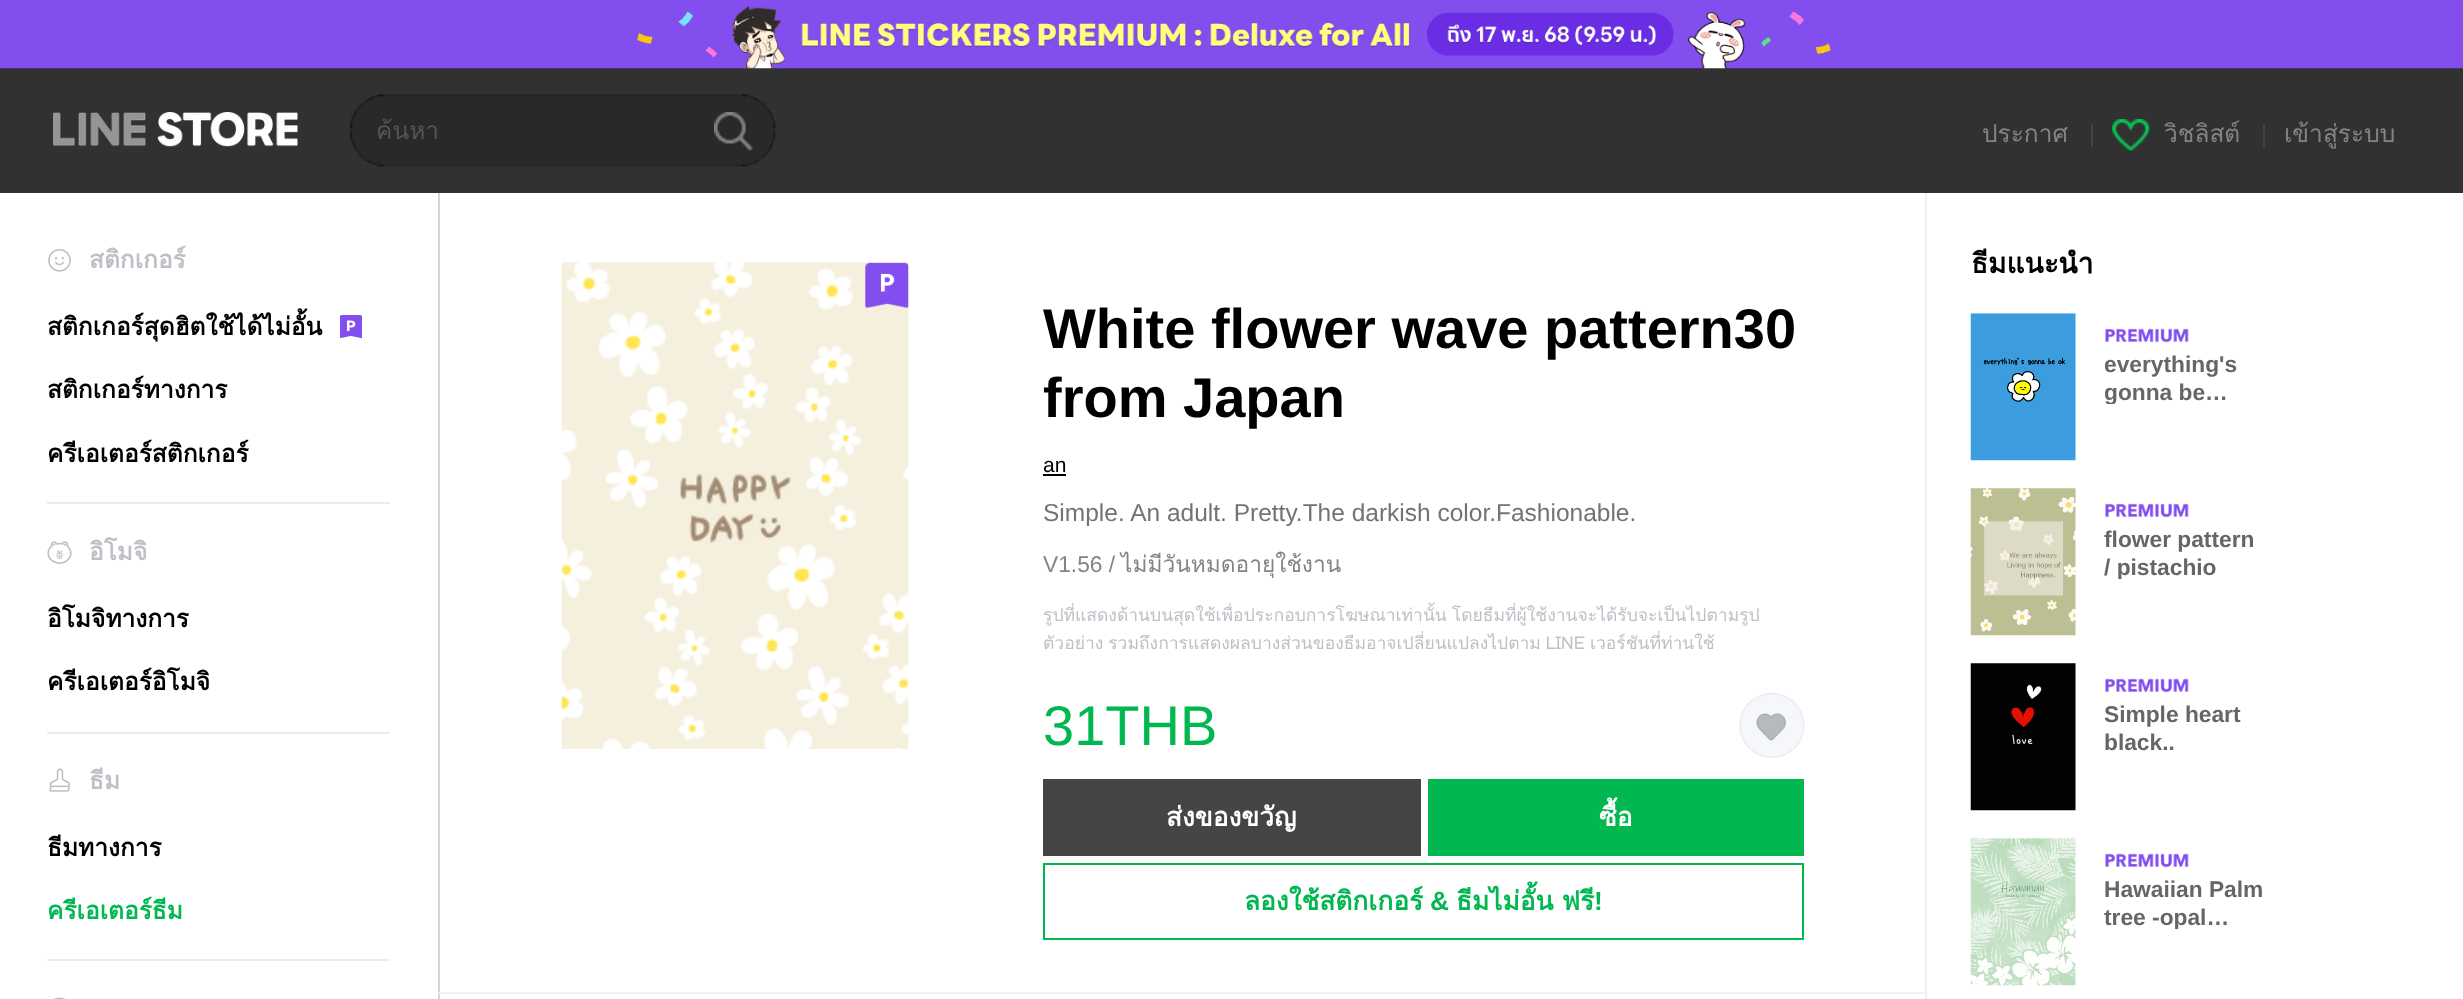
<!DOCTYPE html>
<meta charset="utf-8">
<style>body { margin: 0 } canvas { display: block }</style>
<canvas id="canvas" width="2463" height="999"></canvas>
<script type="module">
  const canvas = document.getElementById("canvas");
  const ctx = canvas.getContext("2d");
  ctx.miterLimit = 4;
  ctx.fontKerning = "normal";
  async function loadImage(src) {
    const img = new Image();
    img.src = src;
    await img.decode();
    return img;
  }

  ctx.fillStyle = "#ffffff";
  ctx.fillRect(0, 0, 2463, 999);
  ctx.fillStyle = "#313131";
  ctx.fillRect(0, 68, 2463, 125);
  ctx.drawImage(await loadImage("img1.png"), 0, 0, 2463, 69);
  ctx.drawImage(await loadImage("img2.png"), 53, 112, 245, 35);
  ctx.drawImage(await loadImage("img3.png"), 350, 94, 426, 73);
  ctx.save();
  ctx.beginPath();
  ctx.rect(376, 112, 319, 39);
  ctx.clip();
  ctx.font = "24.5px Loma";
  ctx.fillStyle = "#545454";
  ctx.fillText("ค้นหา", 376, 139);
  ctx.restore();
  ctx.drawImage(await loadImage("img4.png"), 714, 112, 39, 39);
  ctx.font = "24.5px Loma";
  ctx.fillStyle = "#848484";
  ctx.fillText("ประกาศ", 1982, 142);
  ctx.fillStyle = "#444444";
  ctx.fillRect(2091, 124, 2, 23);
  ctx.drawImage(await loadImage("img5.png"), 2112, 119, 38, 32);
  ctx.fillStyle = "#848484";
  ctx.fillText("วิชลิสต์", 2164, 142);
  ctx.fillStyle = "#444444";
  ctx.fillRect(2263, 124, 2, 23);
  ctx.fillStyle = "#848484";
  ctx.fillText("เข้าสู่ระบบ", 2284, 142);
  ctx.drawImage(await loadImage("img6.png"), 48, 249, 23, 23);
  ctx.font = "bold 24.5px Loma";
  ctx.fillStyle = "#bec0c7";
  ctx.fillText("สติกเกอร์", 89, 268);
  ctx.fillStyle = "#000000";
  ctx.fillText("สติกเกอร์สุดฮิตใช้ได้ไม่อั้น", 47, 335);
  ctx.drawImage(await loadImage("img7.png"), 340, 315, 22, 23);
  ctx.fillText("สติกเกอร์ทางการ", 47, 398);
  ctx.fillText("ครีเอเตอร์สติกเกอร์", 47, 462);
  ctx.fillStyle = "#ebebeb";
  ctx.fillRect(47, 502, 343, 2);
  ctx.drawImage(await loadImage("img8.png"), 47, 541, 25, 23);
  ctx.fillStyle = "#bec0c7";
  ctx.fillText("อิโมจิ", 89, 560);
  ctx.fillStyle = "#000000";
  ctx.fillText("อิโมจิทางการ", 47, 627);
  ctx.fillText("ครีเอเตอร์อิโมจิ", 47, 690);
  ctx.fillStyle = "#ebebeb";
  ctx.fillRect(47, 732, 343, 2);
  ctx.drawImage(await loadImage("img9.png"), 49, 768, 21, 24);
  ctx.fillStyle = "#bec0c7";
  ctx.fillText("ธีม", 89, 789);
  ctx.fillStyle = "#000000";
  ctx.fillText("ธีมทางการ", 47, 856);
  ctx.fillStyle = "#00b84f";
  ctx.fillText("ครีเอเตอร์ธีม", 47, 919);
  ctx.fillStyle = "#ebebeb";
  ctx.fillRect(47, 959, 343, 2);
  ctx.drawImage(await loadImage("img10.png"), 53, 997, 13, 2);
  ctx.fillStyle = "#d6d6d6";
  ctx.fillRect(438, 193, 2, 806);
  ctx.drawImage(await loadImage("img11.png"), 561, 262, 348, 487);
  ctx.drawImage(await loadImage("img12.png"), 865, 262, 44, 47);
  ctx.font = "bold 56px Liberation Sans";
  ctx.fillStyle = "#000000";
  ctx.fillText("White flower wave pattern30", 1043, 348);
  ctx.fillText("from Japan", 1043, 417);
  ctx.font = "21px Liberation Sans";
  ctx.fillText("an", 1043, 472);
  ctx.fillRect(1043, 474, 23, 2);
  ctx.font = "24.5px Liberation Sans";
  ctx.fillStyle = "#737373";
  ctx.fillText("Simple. An adult. Pretty.The darkish color.Fashionable.", 1043, 521);
  ctx.font = "22.75px Liberation Sans";
  ctx.fillStyle = "#848484";
  ctx.fillText("V1.56 /", 1043, 572);
  ctx.font = "22.75px Loma";
  ctx.fillText("ไม่มีวันหมดอายุใช้งาน", 1121, 572);
  ctx.wordSpacing = "-1px";
  ctx.font = "17.5px Loma";
  ctx.fillStyle = "#bec0c7";
  ctx.fillText("รูปที่แสดงด้านบนสุดใช้เพื่อประกอบการโฆษณาเท่านั้น โดยธีมที่ผู้ใช้งานจะได้รับจะเป็นไปตามรูป", 1043, 621);
  ctx.fillText("ตัวอย่าง รวมถึงการแสดงผลบางส่วนของธีมอาจเปลี่ยนแปลงไปตาม LINE เวอร์ชันที่ท่านใช้", 1043, 649);
  ctx.wordSpacing = "0px";
  ctx.font = "56px Liberation Sans";
  ctx.fillStyle = "#00b84f";
  ctx.fillText("31THB", 1043, 745);
  ctx.drawImage(await loadImage("img13.png"), 1739, 693, 66, 65);
  ctx.fillStyle = "#454545";
  ctx.fillRect(1043, 779, 378, 77);
  ctx.font = "bold 26.25px Loma";
  ctx.fillStyle = "#ffffff";
  ctx.fillText("ส่งของขวัญ", 1166, 826);
  ctx.fillStyle = "#00b84f";
  ctx.fillRect(1428, 779, 376, 77);
  ctx.fillStyle = "#ffffff";
  ctx.fillText("ซื้อ", 1599, 826);
  ctx.strokeStyle = "#00b84f";
  ctx.lineWidth = 2;
  ctx.strokeRect(1044, 864, 759, 75);
  ctx.fillStyle = "#00b84f";
  ctx.fillText("ลองใช้สติกเกอร์", 1244, 910);
  ctx.font = "bold 26.25px Liberation Sans";
  ctx.fillText("&", 1430, 910);
  ctx.wordSpacing = "-1px";
  ctx.font = "bold 26.25px Loma";
  ctx.fillText("ธีมไม่อั้น ฟรี", 1456, 910);
  ctx.wordSpacing = "0px";
  ctx.font = "bold 26.25px Liberation Sans";
  ctx.fillText("!", 1594, 910);
  ctx.fillStyle = "#f2f2f2";
  ctx.fillRect(439, 992, 1488, 2);
  ctx.fillStyle = "#efefef";
  ctx.fillRect(1925, 193, 2, 806);
  ctx.font = "bold 28px Loma";
  ctx.fillStyle = "#000000";
  ctx.fillText("ธีมแนะนำ", 1971, 273);
  ctx.drawImage(await loadImage("img14.png"), 1970, 313, 106, 148);
  ctx.drawImage(await loadImage("img15.png"), 2105, 328, 84, 15);
  ctx.font = "bold 22.75px Liberation Sans";
  ctx.fillStyle = "#666666";
  ctx.fillText("everything's", 2104, 372);
  ctx.save();
  ctx.beginPath();
  ctx.rect(2104, 352, 161, 52);
  ctx.clip();
  ctx.fillText("gonna be…", 2104, 400);
  ctx.restore();
  ctx.drawImage(await loadImage("img16.png"), 1970, 488, 106, 148);
  ctx.drawImage(await loadImage("img15.png"), 2105, 503, 84, 15);
  ctx.fillText("flower pattern", 2104, 547);
  ctx.save();
  ctx.beginPath();
  ctx.rect(2104, 527, 161, 52);
  ctx.clip();
  ctx.fillText("/ pistachio", 2104, 575);
  ctx.restore();
  ctx.drawImage(await loadImage("img17.png"), 1970, 663, 106, 148);
  ctx.drawImage(await loadImage("img15.png"), 2105, 678, 84, 15);
  ctx.fillText("Simple heart", 2104, 722);
  ctx.fillText("black..", 2104, 750);
  ctx.drawImage(await loadImage("img18.png"), 1970, 838, 106, 148);
  ctx.drawImage(await loadImage("img15.png"), 2105, 853, 84, 15);
  ctx.fillText("Hawaiian Palm", 2104, 897);
  ctx.save();
  ctx.beginPath();
  ctx.rect(2104, 877, 161, 52);
  ctx.clip();
  ctx.fillText("tree -opal…", 2104, 925);
  ctx.restore();
</script>
